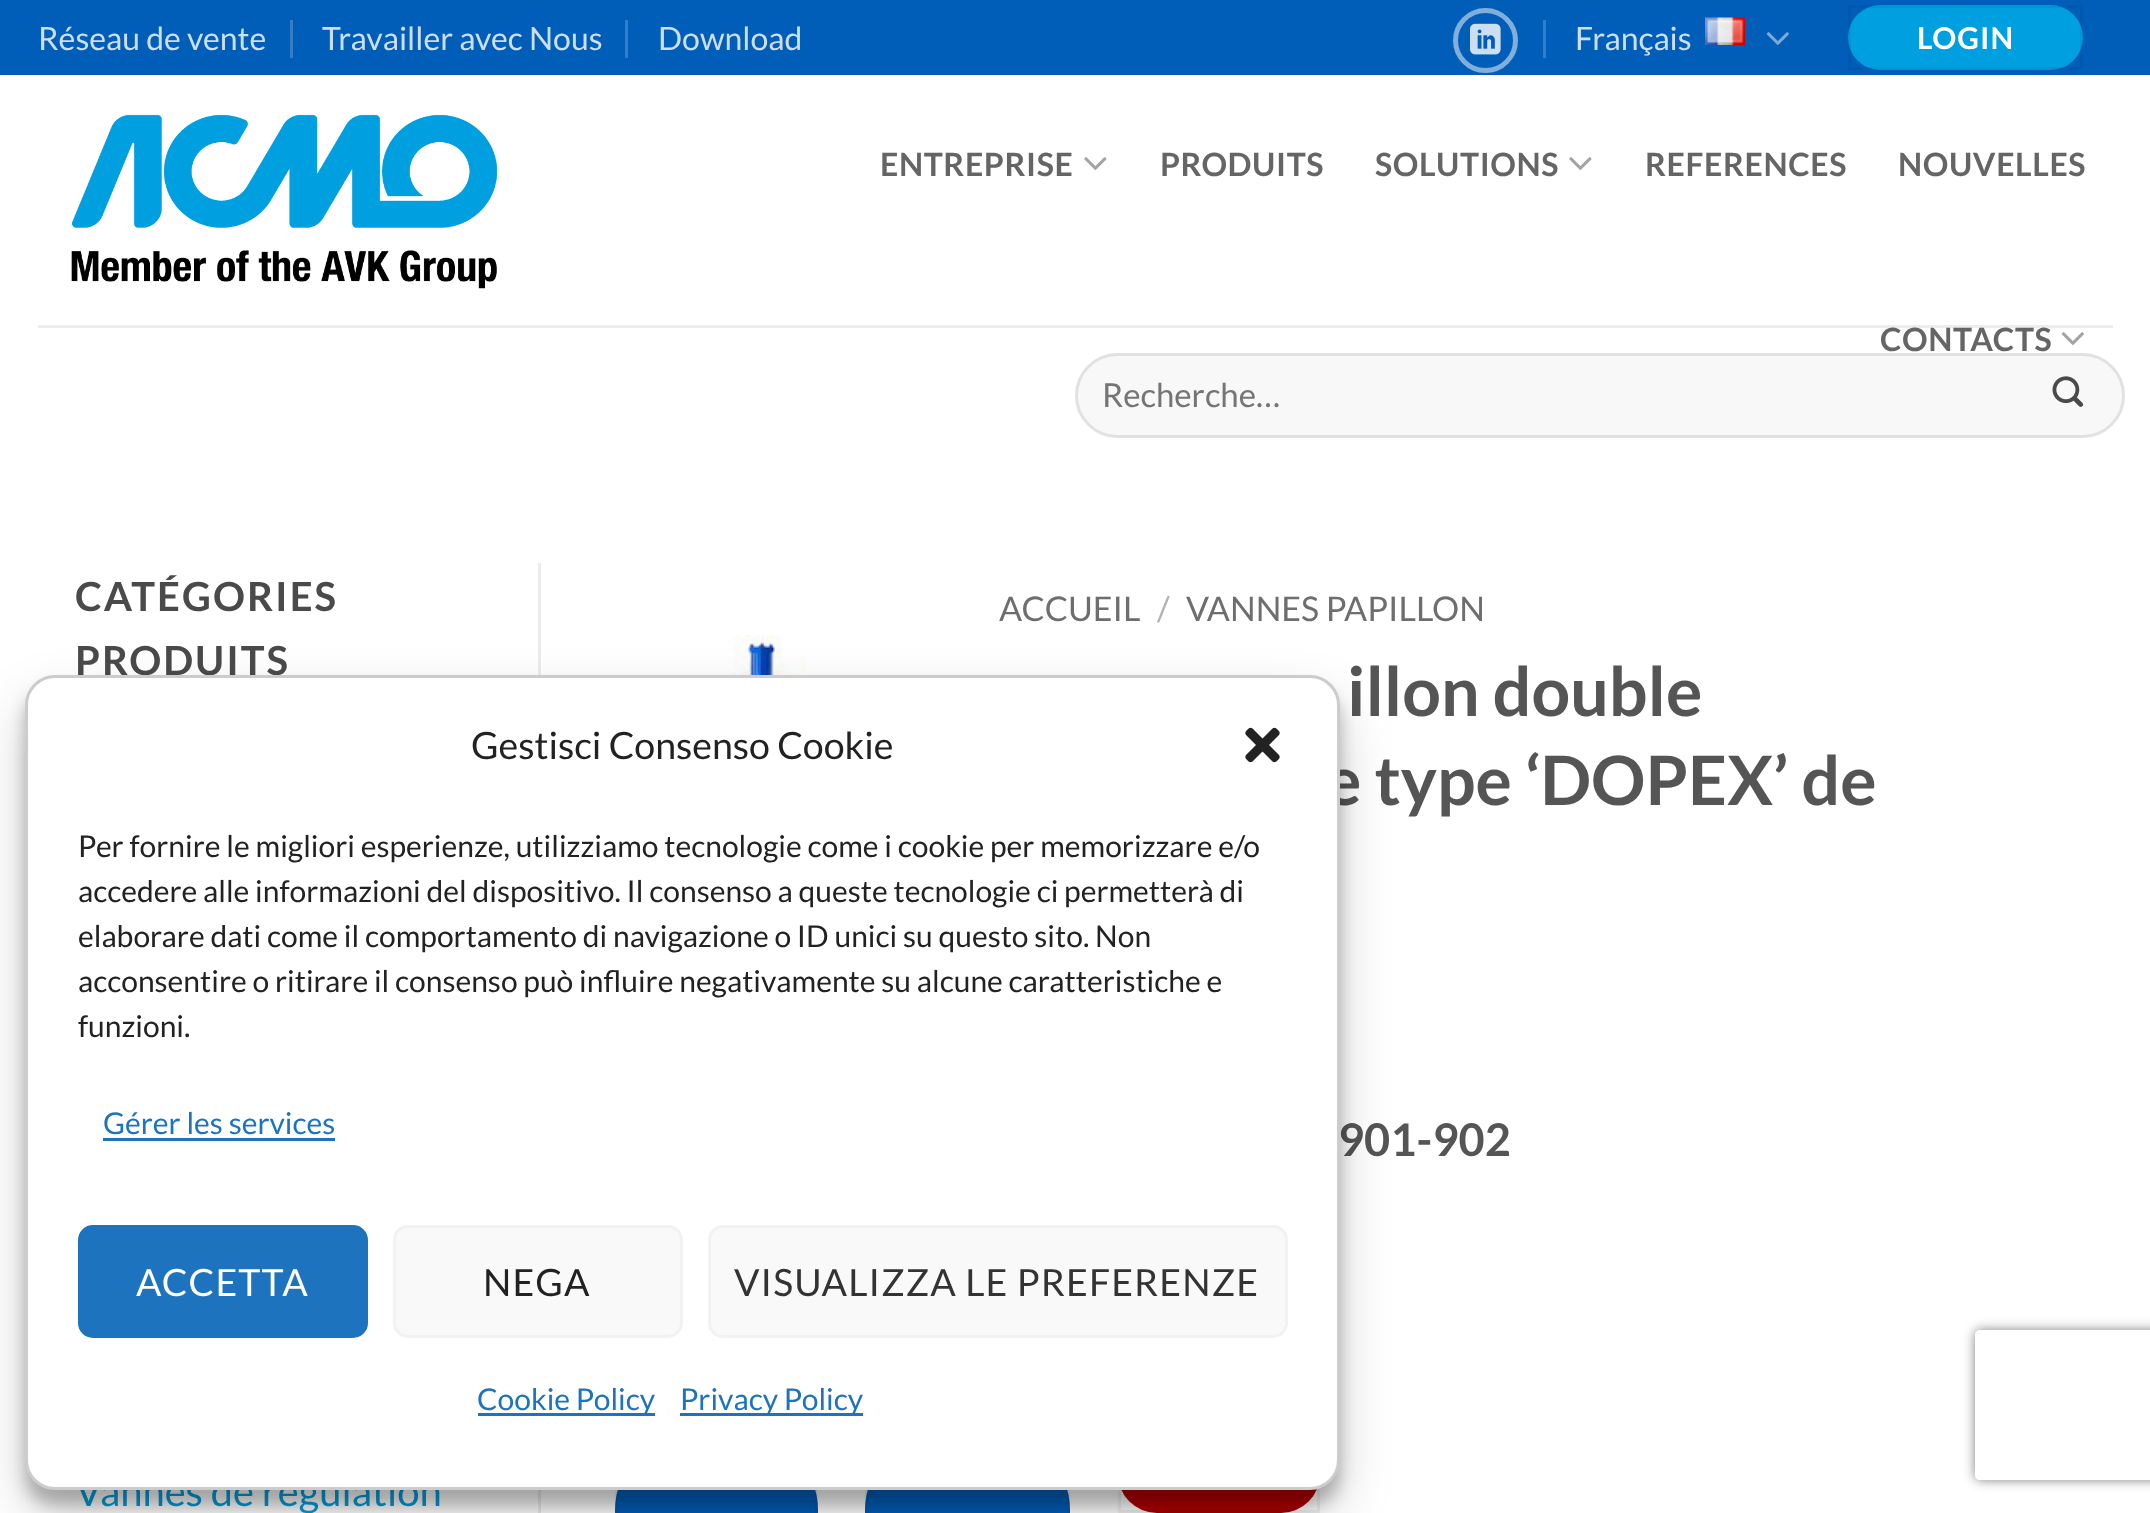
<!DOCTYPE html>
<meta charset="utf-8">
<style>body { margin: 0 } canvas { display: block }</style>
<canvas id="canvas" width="2150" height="1513"></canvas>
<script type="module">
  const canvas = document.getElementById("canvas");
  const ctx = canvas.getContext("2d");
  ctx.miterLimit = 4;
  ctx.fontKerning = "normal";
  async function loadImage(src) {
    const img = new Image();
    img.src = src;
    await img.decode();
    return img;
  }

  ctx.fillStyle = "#ffffff";
  ctx.fillRect(0, 0, 2150, 1513);
  ctx.fillStyle = "#005eb8";
  ctx.fillRect(0, 0, 2150, 75);
  ctx.font = "32px Lato";
  ctx.fillStyle = "#ccdff1";
  ctx.fillText("Réseau de vente", 38, 50);
  ctx.fillStyle = "#337ec6";
  ctx.fillRect(290, 20, 3, 38);
  ctx.fillStyle = "#ccdff1";
  ctx.fillText("Travailler avec Nous", 322, 50);
  ctx.fillStyle = "#337ec6";
  ctx.fillRect(625, 20, 3, 38);
  ctx.fillStyle = "#ccdff1";
  ctx.fillText("Download", 658, 50);
  ctx.beginPath();
  ctx.arc(1485.5, 40.5, 30, 0, Math.PI * 2);
  ctx.strokeStyle = "#80afdc";
  ctx.lineWidth = 5;
  ctx.stroke();
  ctx.drawImage(await loadImage("img1.png"), 1470, 23, 31, 32);
  ctx.fillStyle = "#337ec6";
  ctx.fillRect(1543, 20, 3, 38);
  ctx.fillStyle = "#ccdff1";
  ctx.fillText("Français", 1575, 50);
  ctx.drawImage(await loadImage("img2.png"), 1705, 17, 40, 28);
  ctx.drawImage(await loadImage("img3.png"), 1766, 32, 23, 13);
  ctx.fillStyle = "#009fdf";
  ctx.beginPath();
  ctx.roundRect(1848, 5, 235, 65, 32.5);
  ctx.fill();
  ctx.strokeStyle = "rgba(0, 0, 0, 0.05)";
  ctx.lineWidth = 3;
  ctx.strokeRect(1849.5, 6.5, 232, 62);
  ctx.letterSpacing = "1px";
  ctx.font = "bold 30px Lato";
  ctx.fillStyle = "#ffffff";
  ctx.fillText("LOGIN", 1917, 49);
  ctx.drawImage(await loadImage("img4.png"), 71, 114, 427, 175);
  ctx.letterSpacing = "0.6px";
  ctx.font = "bold 32px Lato";
  ctx.fillStyle = "#656565";
  ctx.fillText("ENTREPRISE", 880, 176);
  ctx.drawImage(await loadImage("img5.png"), 1084, 157, 23, 13);
  ctx.fillText("PRODUITS", 1160, 176);
  ctx.fillText("SOLUTIONS", 1375, 176);
  ctx.drawImage(await loadImage("img5.png"), 1569, 157, 23, 13);
  ctx.fillText("REFERENCES", 1645, 176);
  ctx.fillText("NOUVELLES", 1898, 176);
  ctx.fillText("CONTACTS", 1880, 351);
  ctx.drawImage(await loadImage("img6.png"), 2061, 332, 23, 13);
  ctx.fillStyle = "rgba(74, 74, 74, 0.1)";
  ctx.fillRect(38, 325, 2075, 3);
  ctx.fillStyle = "#f8f8f8";
  ctx.beginPath();
  ctx.roundRect(1075, 353, 1050, 85, 42.5);
  ctx.fill();
  ctx.beginPath();
  ctx.roundRect(1076.5, 354.5, 1047, 82, 41);
  ctx.strokeStyle = "rgba(0, 0, 0, 0.09)";
  ctx.stroke();
  ctx.letterSpacing = "0px";
  ctx.font = "33px Lato";
  ctx.fillStyle = "#757575";
  ctx.fillText("Recherche…", 1102, 407);
  ctx.drawImage(await loadImage("img7.png"), 2052, 376, 32, 31);
  ctx.letterSpacing = "2px";
  ctx.font = "bold 40px Lato";
  ctx.fillStyle = "#4a4a4a";
  ctx.fillText("CATÉGORIES", 75, 611);
  ctx.fillText("PRODUITS", 75, 675);
  ctx.letterSpacing = "0px";
  ctx.font = "40px Lato";
  ctx.fillStyle = "#009fdf";
  ctx.fillText("Vannes de regulation", 75, 1506);
  ctx.fillStyle = "#ececec";
  ctx.fillRect(538, 563, 3, 950);
  ctx.drawImage(await loadImage("img8.png"), 615, 631, 310, 44);
  ctx.font = "34px Lato";
  ctx.fillStyle = "#6e6e6e";
  ctx.fillText("ACCUEIL", 999, 621);
  ctx.fillStyle = "#b2b2b2";
  ctx.fillText("/", 1157, 621);
  ctx.fillStyle = "#6e6e6e";
  ctx.fillText("VANNES PAPILLON", 1186, 621);
  ctx.font = "bold 68px Lato";
  ctx.fillStyle = "#555555";
  ctx.fillText("illon double", 1347, 716);
  ctx.fillText("e type ‘DOPEX’ de", 1325, 805);
  ctx.font = "bold 45px Lato";
  ctx.fillText("901-902", 1338, 1156);
  ctx.fillStyle = "#005eb8";
  ctx.beginPath();
  ctx.roundRect(615, 1435, 203, 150, 75);
  ctx.fill();
  ctx.strokeStyle = "rgba(0, 0, 0, 0.05)";
  ctx.strokeRect(616.5, 1436.5, 200, 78);
  ctx.beginPath();
  ctx.roundRect(865, 1435, 205, 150, 75);
  ctx.fill();
  ctx.strokeRect(866.5, 1436.5, 202, 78);
  ctx.fillStyle = "#b20000";
  ctx.beginPath();
  ctx.roundRect(1118, 1435, 202, 78, 39);
  ctx.fill();
  ctx.strokeRect(1119.5, 1436.5, 199, 75);
  ctx.fillStyle = "rgba(0, 0, 0, 0.23)";
  ctx.filter = "blur(7.5px)";
  ctx.beginPath();
  ctx.roundRect(25, 690, 1315, 815, 30);
  ctx.fill();
  ctx.filter = "none";
  ctx.fillStyle = "rgba(0, 0, 0, 0.19)";
  ctx.filter = "blur(25px)";
  ctx.beginPath();
  ctx.roundRect(25, 700, 1315, 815, 30);
  ctx.fill();
  ctx.filter = "none";
  ctx.fillStyle = "#ffffff";
  ctx.beginPath();
  ctx.roundRect(26.5, 676.5, 1312, 812, 28.5);
  ctx.fill();
  ctx.strokeStyle = "#cccccc";
  ctx.stroke();
  ctx.font = "37.5px Lato";
  ctx.fillStyle = "#222222";
  ctx.fillText("Gestisci Consenso Cookie", 471, 759);
  ctx.drawImage(await loadImage("img9.png"), 1245, 727, 35, 36);
  ctx.font = "30px Lato";
  ctx.fillText("Per fornire le migliori esperienze, utilizziamo tecnologie come i cookie per memorizzare e/o", 78, 857);
  ctx.fillText("accedere alle informazioni del dispositivo. Il consenso a queste tecnologie ci permetterà di", 78, 902);
  ctx.fillText("elaborare dati come il comportamento di navigazione o ID unici su questo sito. Non", 78, 947);
  ctx.fillText("acconsentire o ritirare il consenso può influire negativamente su alcune caratteristiche e", 78, 992);
  ctx.fillText("funzioni.", 78, 1037);
  ctx.fillStyle = "#1e73be";
  ctx.fillText("Gérer les services", 103, 1134);
  ctx.fillRect(103, 1138, 232, 3);
  ctx.beginPath();
  ctx.roundRect(79.5, 1226.5, 287, 110, 13.5);
  ctx.fill();
  ctx.strokeStyle = "#1e73be";
  ctx.stroke();
  ctx.letterSpacing = "1.1px";
  ctx.font = "37.5px Lato";
  ctx.fillStyle = "#ffffff";
  ctx.fillText("ACCETTA", 136, 1296);
  ctx.fillStyle = "#f9f9f9";
  ctx.beginPath();
  ctx.roundRect(394.5, 1226.5, 287, 110, 13.5);
  ctx.fill();
  ctx.strokeStyle = "#f2f2f2";
  ctx.stroke();
  ctx.fillStyle = "#222222";
  ctx.fillText("NEGA", 483, 1296);
  ctx.fillStyle = "#f9f9f9";
  ctx.beginPath();
  ctx.roundRect(709.5, 1226.5, 577, 110, 13.5);
  ctx.fill();
  ctx.stroke();
  ctx.fillStyle = "#333333";
  ctx.fillText("VISUALIZZA LE PREFERENZE", 734, 1296);
  ctx.fillStyle = "#1e73be";
  ctx.fillRect(478, 1413, 177, 3);
  ctx.letterSpacing = "0px";
  ctx.font = "30px Lato";
  ctx.fillText("Cookie Policy", 477, 1410);
  ctx.fillRect(680, 1413, 183, 3);
  ctx.fillText("Privacy Policy", 680, 1410);
  ctx.save();
  ctx.beginPath();
  ctx.moveTo(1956, 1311);
  ctx.lineTo(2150, 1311);
  ctx.lineTo(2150, 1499);
  ctx.lineTo(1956, 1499);
  ctx.closePath();
  ctx.moveTo(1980, 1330);
  ctx.lineTo(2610, 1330);
  ctx.bezierCurveTo(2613, 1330, 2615, 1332, 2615, 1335);
  ctx.lineTo(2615, 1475);
  ctx.bezierCurveTo(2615, 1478, 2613, 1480, 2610, 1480);
  ctx.lineTo(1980, 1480);
  ctx.bezierCurveTo(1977, 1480, 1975, 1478, 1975, 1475);
  ctx.lineTo(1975, 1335);
  ctx.bezierCurveTo(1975, 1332, 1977, 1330, 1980, 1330);
  ctx.closePath();
  ctx.clip("evenodd");
  ctx.fillStyle = "#808080";
  ctx.filter = "blur(6px)";
  ctx.beginPath();
  ctx.roundRect(1975, 1330, 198, 150, 5);
  ctx.fill();
  ctx.filter = "none";
  ctx.restore();
</script>
